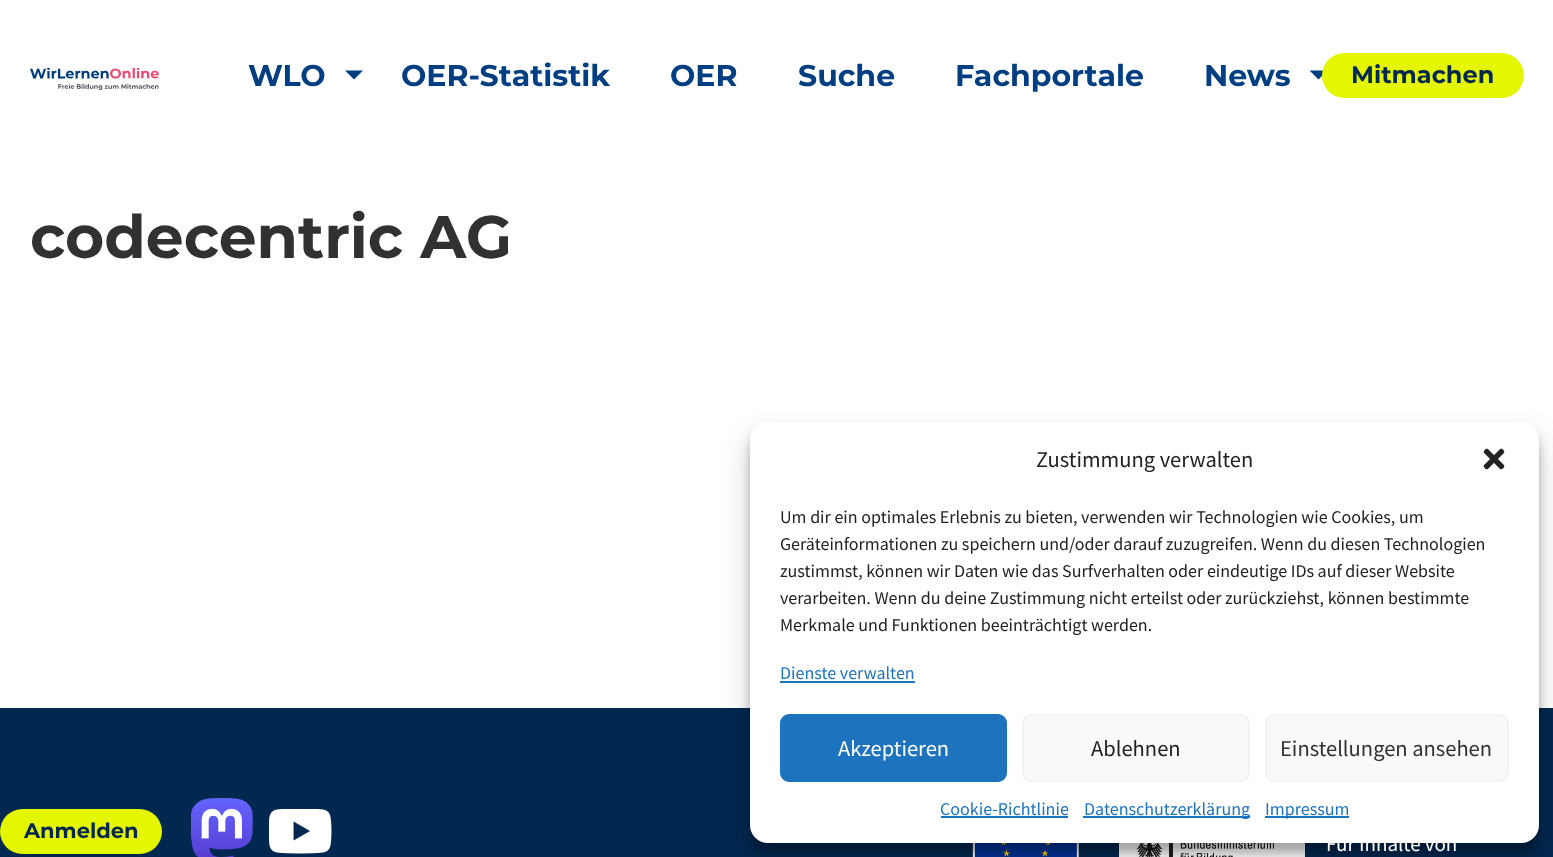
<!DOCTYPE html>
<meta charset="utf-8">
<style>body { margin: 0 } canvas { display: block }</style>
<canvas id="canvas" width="1553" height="857"></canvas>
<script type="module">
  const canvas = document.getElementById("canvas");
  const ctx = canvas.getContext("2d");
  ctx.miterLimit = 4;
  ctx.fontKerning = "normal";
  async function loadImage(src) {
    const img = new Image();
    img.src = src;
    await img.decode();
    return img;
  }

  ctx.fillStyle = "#ffffff";
  ctx.fillRect(0, 0, 1553, 857);
  ctx.drawImage(await loadImage("img1.png"), 30, 68, 129, 22);
  ctx.font = "bold 30px Montserrat";
  ctx.fillStyle = "#003e82";
  ctx.fillText("WLO", 248, 86);
  ctx.beginPath();
  ctx.moveTo(345, 70.5);
  ctx.lineTo(363, 70.5);
  ctx.lineTo(354, 79.5);
  ctx.closePath();
  ctx.fill();
  ctx.fillText("OER-Statistik", 401, 86);
  ctx.fillText("OER", 670, 86);
  ctx.fillText("Suche", 798, 86);
  ctx.fillText("Fachportale", 955, 86);
  ctx.fillText("News", 1204, 86);
  ctx.beginPath();
  ctx.moveTo(1309.5, 70.5);
  ctx.lineTo(1327.5, 70.5);
  ctx.lineTo(1318.5, 79.5);
  ctx.closePath();
  ctx.fill();
  ctx.fillStyle = "#e4f700";
  ctx.beginPath();
  ctx.roundRect(1322, 53, 202, 45, 22.5);
  ctx.fill();
  ctx.font = "bold 24px Montserrat";
  ctx.fillStyle = "#032850";
  ctx.fillText("Mitmachen", 1351, 83);
  ctx.font = "bold 60px Montserrat";
  ctx.fillStyle = "#313131";
  ctx.fillText("codecentric AG", 30, 258);
  ctx.fillStyle = "#032850";
  ctx.fillRect(0, 708, 1553, 149);
  ctx.drawImage(await loadImage("img5.png"), 972, 843, 107, 14);
  ctx.fillStyle = "#ffffff";
  ctx.fillRect(1119, 843, 186, 14);
  ctx.drawImage(await loadImage("img6.png"), 1136, 843, 138, 14);
  ctx.fillStyle = "rgba(0, 0, 0, 0.23)";
  ctx.filter = "blur(4.5px)";
  ctx.beginPath();
  ctx.roundRect(750, 431, 789, 421, 18);
  ctx.fill();
  ctx.filter = "none";
  ctx.fillStyle = "rgba(0, 0, 0, 0.19)";
  ctx.filter = "blur(15px)";
  ctx.beginPath();
  ctx.roundRect(750, 437, 789, 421, 18);
  ctx.fill();
  ctx.filter = "none";
  ctx.fillStyle = "#ffffff";
  ctx.beginPath();
  ctx.roundRect(750, 422, 789, 421, 18);
  ctx.fill();
  ctx.font = "22.5px Source Sans Pro";
  ctx.fillStyle = "#222222";
  ctx.fillText("Zustimmung verwalten", 1036, 467);
  ctx.drawImage(await loadImage("img2.png"), 1483, 448, 22, 22);
  ctx.font = "18px Source Sans Pro";
  ctx.fillText("Um dir ein optimales Erlebnis zu bieten, verwenden wir Technologien wie Cookies, um", 780, 523);
  ctx.fillText("Geräteinformationen zu speichern und/oder darauf zuzugreifen. Wenn du diesen Technologien", 780, 550);
  ctx.fillText("zustimmst, können wir Daten wie das Surfverhalten oder eindeutige IDs auf dieser Website", 780, 577);
  ctx.fillText("verarbeiten. Wenn du deine Zustimmung nicht erteilst oder zurückziehst, können bestimmte", 780, 604);
  ctx.fillText("Merkmale und Funktionen beeinträchtigt werden.", 780, 631);
  ctx.fillStyle = "#1e73be";
  ctx.fillText("Dienste verwalten", 780, 679);
  ctx.fillRect(780, 681, 135, 2);
  ctx.beginPath();
  ctx.roundRect(781, 715, 225, 66, 8);
  ctx.fill();
  ctx.strokeStyle = "#1e73be";
  ctx.lineWidth = 2;
  ctx.stroke();
  ctx.font = "22.5px Source Sans Pro";
  ctx.fillStyle = "#ffffff";
  ctx.fillText("Akzeptieren", 838, 756);
  ctx.fillStyle = "#f9f9f9";
  ctx.beginPath();
  ctx.roundRect(1023, 715, 226, 66, 8);
  ctx.fill();
  ctx.strokeStyle = "#f2f2f2";
  ctx.stroke();
  ctx.fillStyle = "#222222";
  ctx.fillText("Ablehnen", 1091, 756);
  ctx.fillStyle = "#f9f9f9";
  ctx.beginPath();
  ctx.roundRect(1266, 715, 242, 66, 8);
  ctx.fill();
  ctx.stroke();
  ctx.fillStyle = "#313131";
  ctx.fillText("Einstellungen ansehen", 1280, 756);
  ctx.font = "18px Source Sans Pro";
  ctx.fillStyle = "#1e73be";
  ctx.fillText("Cookie-Richtlinie", 940, 815);
  ctx.fillRect(941, 816, 127, 2);
  ctx.fillRect(1083, 816, 167, 2);
  ctx.fillText("Datenschutzerklärung", 1084, 815);
  ctx.fillRect(1265, 816, 84, 2);
  ctx.fillText("Impressum", 1265, 815);
  ctx.fillStyle = "#e4f700";
  ctx.beginPath();
  ctx.roundRect(0, 809, 162, 45, 22.5);
  ctx.fill();
  ctx.font = "bold 21px Montserrat";
  ctx.fillStyle = "#032850";
  ctx.fillText("Anmelden", 24, 838);
  ctx.drawImage(await loadImage("img3.png"), 191, 798, 62, 59);
  ctx.drawImage(await loadImage("img4.png"), 269, 809, 63, 45);
  ctx.font = "21px Source Sans Pro";
  ctx.fillStyle = "#ffffff";
  ctx.fillText("Für Inhalte von", 1326, 851);
</script>
